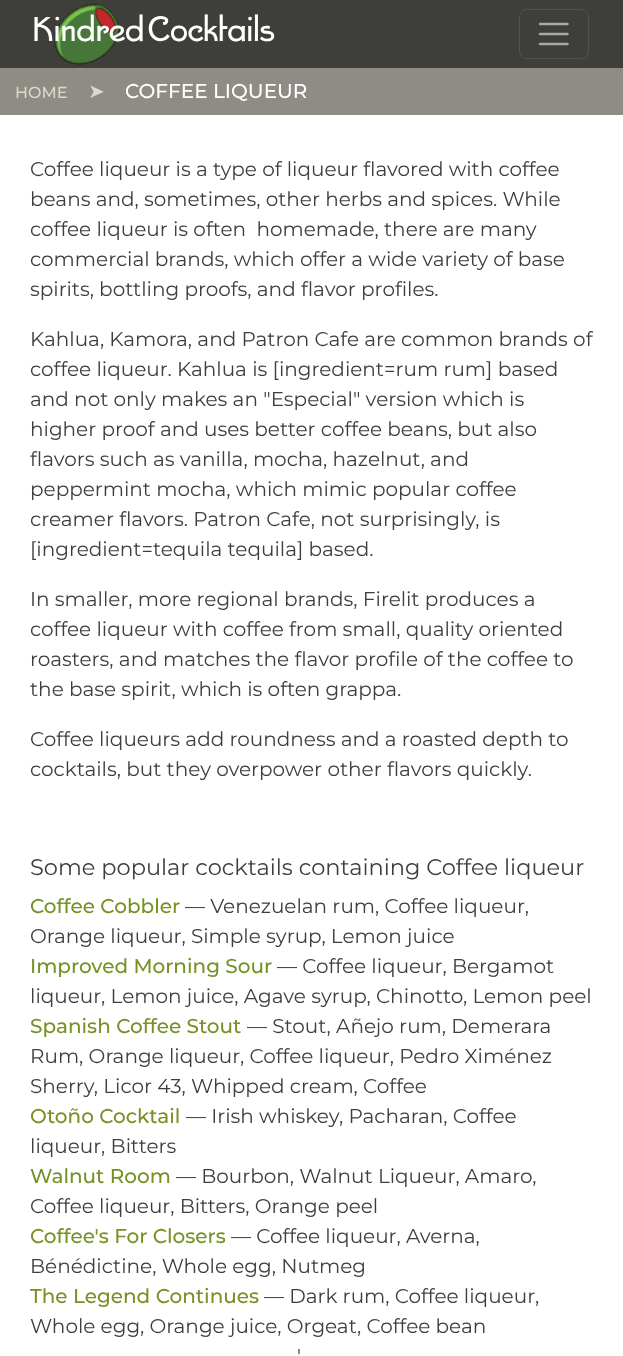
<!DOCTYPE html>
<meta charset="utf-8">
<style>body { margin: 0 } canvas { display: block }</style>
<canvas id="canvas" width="623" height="1356"></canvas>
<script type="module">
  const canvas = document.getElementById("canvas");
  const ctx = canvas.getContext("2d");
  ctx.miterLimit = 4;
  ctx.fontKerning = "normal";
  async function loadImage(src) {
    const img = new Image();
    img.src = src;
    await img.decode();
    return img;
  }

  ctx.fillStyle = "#ffffff";
  ctx.fillRect(0, 0, 623, 1356);
  ctx.fillStyle = "#3e3f3a";
  ctx.fillRect(0, 0, 623, 68);
  ctx.drawImage(await loadImage("img1.png"), 49, 3, 71, 62);
  ctx.font = "40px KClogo";
  ctx.fillStyle = "#ffffff";
  ctx.fillText("Kindred Cocktails", 34, 41);
  ctx.beginPath();
  ctx.roundRect(519.5, 9.5, 69, 49, 7.5);
  ctx.strokeStyle = "#51524e";
  ctx.stroke();
  ctx.beginPath();
  ctx.moveTo(540, 24);
  ctx.lineTo(567.5, 24);
  ctx.moveTo(540, 34);
  ctx.lineTo(567.5, 34);
  ctx.moveTo(540, 44);
  ctx.lineTo(567.5, 44);
  ctx.strokeStyle = "#a8a9a6";
  ctx.lineWidth = 2.5;
  ctx.lineCap = "round";
  ctx.stroke();
  ctx.fillStyle = "#8e8c84";
  ctx.fillRect(0, 68, 623, 47);
  ctx.font = "500 16px Montserrat";
  ctx.fillStyle = "#dfd7ca";
  ctx.fillText("HOME", 15, 98);
  ctx.font = "20px DejaVu Sans";
  ctx.fillText("➤", 88, 98);
  ctx.font = "500 20px Montserrat";
  ctx.fillStyle = "#ffffff";
  ctx.fillText("COFFEE LIQUEUR", 125, 98);
  ctx.font = "20px Montserrat";
  ctx.fillStyle = "#3e3f3a";
  ctx.fillText("Coffee liqueur is a type of liqueur flavored with coffee", 30, 176);
  ctx.fillText("beans and, sometimes, other herbs and spices. While", 30, 206);
  ctx.fillText("coffee liqueur is often  homemade, there are many", 30, 236);
  ctx.fillText("commercial brands, which offer a wide variety of base", 30, 266);
  ctx.fillText("spirits, bottling proofs, and flavor profiles.", 30, 296);
  ctx.fillText("Kahlua, Kamora, and Patron Cafe are common brands of", 30, 346);
  ctx.fillText("coffee liqueur. Kahlua is [ingredient=rum rum] based", 30, 376);
  ctx.fillText("and not only makes an \"Especial\" version which is", 30, 406);
  ctx.fillText("higher proof and uses better coffee beans, but also", 30, 436);
  ctx.fillText("flavors such as vanilla, mocha, hazelnut, and", 30, 466);
  ctx.fillText("peppermint mocha, which mimic popular coffee", 30, 496);
  ctx.fillText("creamer flavors. Patron Cafe, not surprisingly, is", 30, 526);
  ctx.fillText("[ingredient=tequila tequila] based.", 30, 556);
  ctx.fillText("In smaller, more regional brands, Firelit produces a", 30, 606);
  ctx.fillText("coffee liqueur with coffee from small, quality oriented", 30, 636);
  ctx.fillText("roasters, and matches the flavor profile of the coffee to", 30, 666);
  ctx.fillText("the base spirit, which is often grappa.", 30, 696);
  ctx.fillText("Coffee liqueurs add roundness and a roasted depth to", 30, 746);
  ctx.fillText("cocktails, but they overpower other flavors quickly.", 30, 776);
  ctx.font = "22.5px Montserrat";
  ctx.fillText("Some popular cocktails containing Coffee liqueur", 30, 875);
  ctx.font = "500 20px Montserrat";
  ctx.fillStyle = "#779125";
  ctx.fillText("Coffee Cobbler", 30, 913);
  ctx.font = "20px Montserrat";
  ctx.fillStyle = "#3e3f3a";
  ctx.fillText("— Venezuelan rum, Coffee liqueur,", 185, 913);
  ctx.fillText("Orange liqueur, Simple syrup, Lemon juice", 30, 943);
  ctx.font = "500 20px Montserrat";
  ctx.fillStyle = "#779125";
  ctx.fillText("Improved Morning Sour", 30, 973);
  ctx.font = "20px Montserrat";
  ctx.fillStyle = "#3e3f3a";
  ctx.fillText("— Coffee liqueur, Bergamot", 277, 973);
  ctx.fillText("liqueur, Lemon juice, Agave syrup, Chinotto, Lemon peel", 30, 1003);
  ctx.font = "500 20px Montserrat";
  ctx.fillStyle = "#779125";
  ctx.fillText("Spanish Coffee Stout", 30, 1033);
  ctx.font = "20px Montserrat";
  ctx.fillStyle = "#3e3f3a";
  ctx.fillText("— Stout, Añejo rum, Demerara", 247, 1033);
  ctx.fillText("Rum, Orange liqueur, Coffee liqueur, Pedro Ximénez", 30, 1063);
  ctx.fillText("Sherry, Licor 43, Whipped cream, Coffee", 30, 1093);
  ctx.font = "500 20px Montserrat";
  ctx.fillStyle = "#779125";
  ctx.fillText("Otoño Cocktail", 30, 1123);
  ctx.font = "20px Montserrat";
  ctx.fillStyle = "#3e3f3a";
  ctx.fillText("— Irish whiskey, Pacharan, Coffee", 186, 1123);
  ctx.fillText("liqueur, Bitters", 30, 1153);
  ctx.font = "500 20px Montserrat";
  ctx.fillStyle = "#779125";
  ctx.fillText("Walnut Room", 30, 1183);
  ctx.font = "20px Montserrat";
  ctx.fillStyle = "#3e3f3a";
  ctx.fillText("— Bourbon, Walnut Liqueur, Amaro,", 176, 1183);
  ctx.fillText("Coffee liqueur, Bitters, Orange peel", 30, 1213);
  ctx.font = "500 20px Montserrat";
  ctx.fillStyle = "#779125";
  ctx.fillText("Coffee's For Closers", 30, 1243);
  ctx.font = "20px Montserrat";
  ctx.fillStyle = "#3e3f3a";
  ctx.fillText("— Coffee liqueur, Averna,", 231, 1243);
  ctx.fillText("Bénédictine, Whole egg, Nutmeg", 30, 1273);
  ctx.font = "500 20px Montserrat";
  ctx.fillStyle = "#779125";
  ctx.fillText("The Legend Continues", 30, 1303);
  ctx.font = "20px Montserrat";
  ctx.fillStyle = "#3e3f3a";
  ctx.fillText("— Dark rum, Coffee liqueur,", 264, 1303);
  ctx.fillText("Whole egg, Orange juice, Orgeat, Coffee bean", 30, 1333);
  ctx.fillText("'", 297, 1363);
</script>
